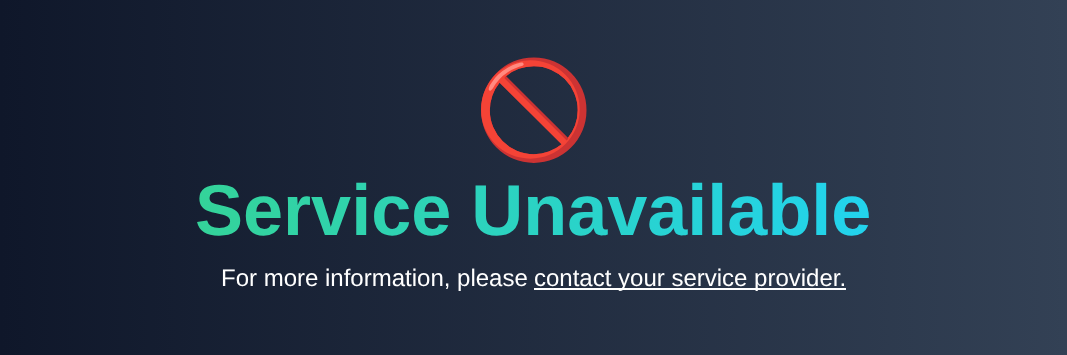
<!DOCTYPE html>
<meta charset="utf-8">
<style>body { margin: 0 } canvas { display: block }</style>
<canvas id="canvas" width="1067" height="355"></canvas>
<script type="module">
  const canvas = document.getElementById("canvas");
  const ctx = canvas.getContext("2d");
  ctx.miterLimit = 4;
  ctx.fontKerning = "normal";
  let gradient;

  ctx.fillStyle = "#ffffff";
  ctx.fillRect(0, 0, 1067, 355);
  gradient = ctx.createLinearGradient(0, 178, 1067, 177);
  gradient.addColorStop(0, "#0f172a");
  gradient.addColorStop(1, "#334155");
  ctx.fillStyle = gradient;
  ctx.fillRect(0, 0, 1067, 355);
  ctx.font = "96px Noto Color Emoji";
  ctx.fillStyle = "#000000";
  ctx.fillText("🚫", 474, 143);
  ctx.font = "bold 72px Liberation Sans";
  gradient = ctx.createLinearGradient(195, 210, 872, 209);
  gradient.addColorStop(0, "#34d399");
  gradient.addColorStop(1, "#22d3ee");
  ctx.fillStyle = gradient;
  ctx.fillText("Service Unavailable", 195, 235);
  ctx.font = "24px Liberation Sans";
  ctx.fillStyle = "#ffffff";
  ctx.fillText("For more information, please", 221, 286);
  ctx.fillRect(534, 288, 312, 2);
  ctx.fillText("contact your service provider.", 534, 286);
</script>
